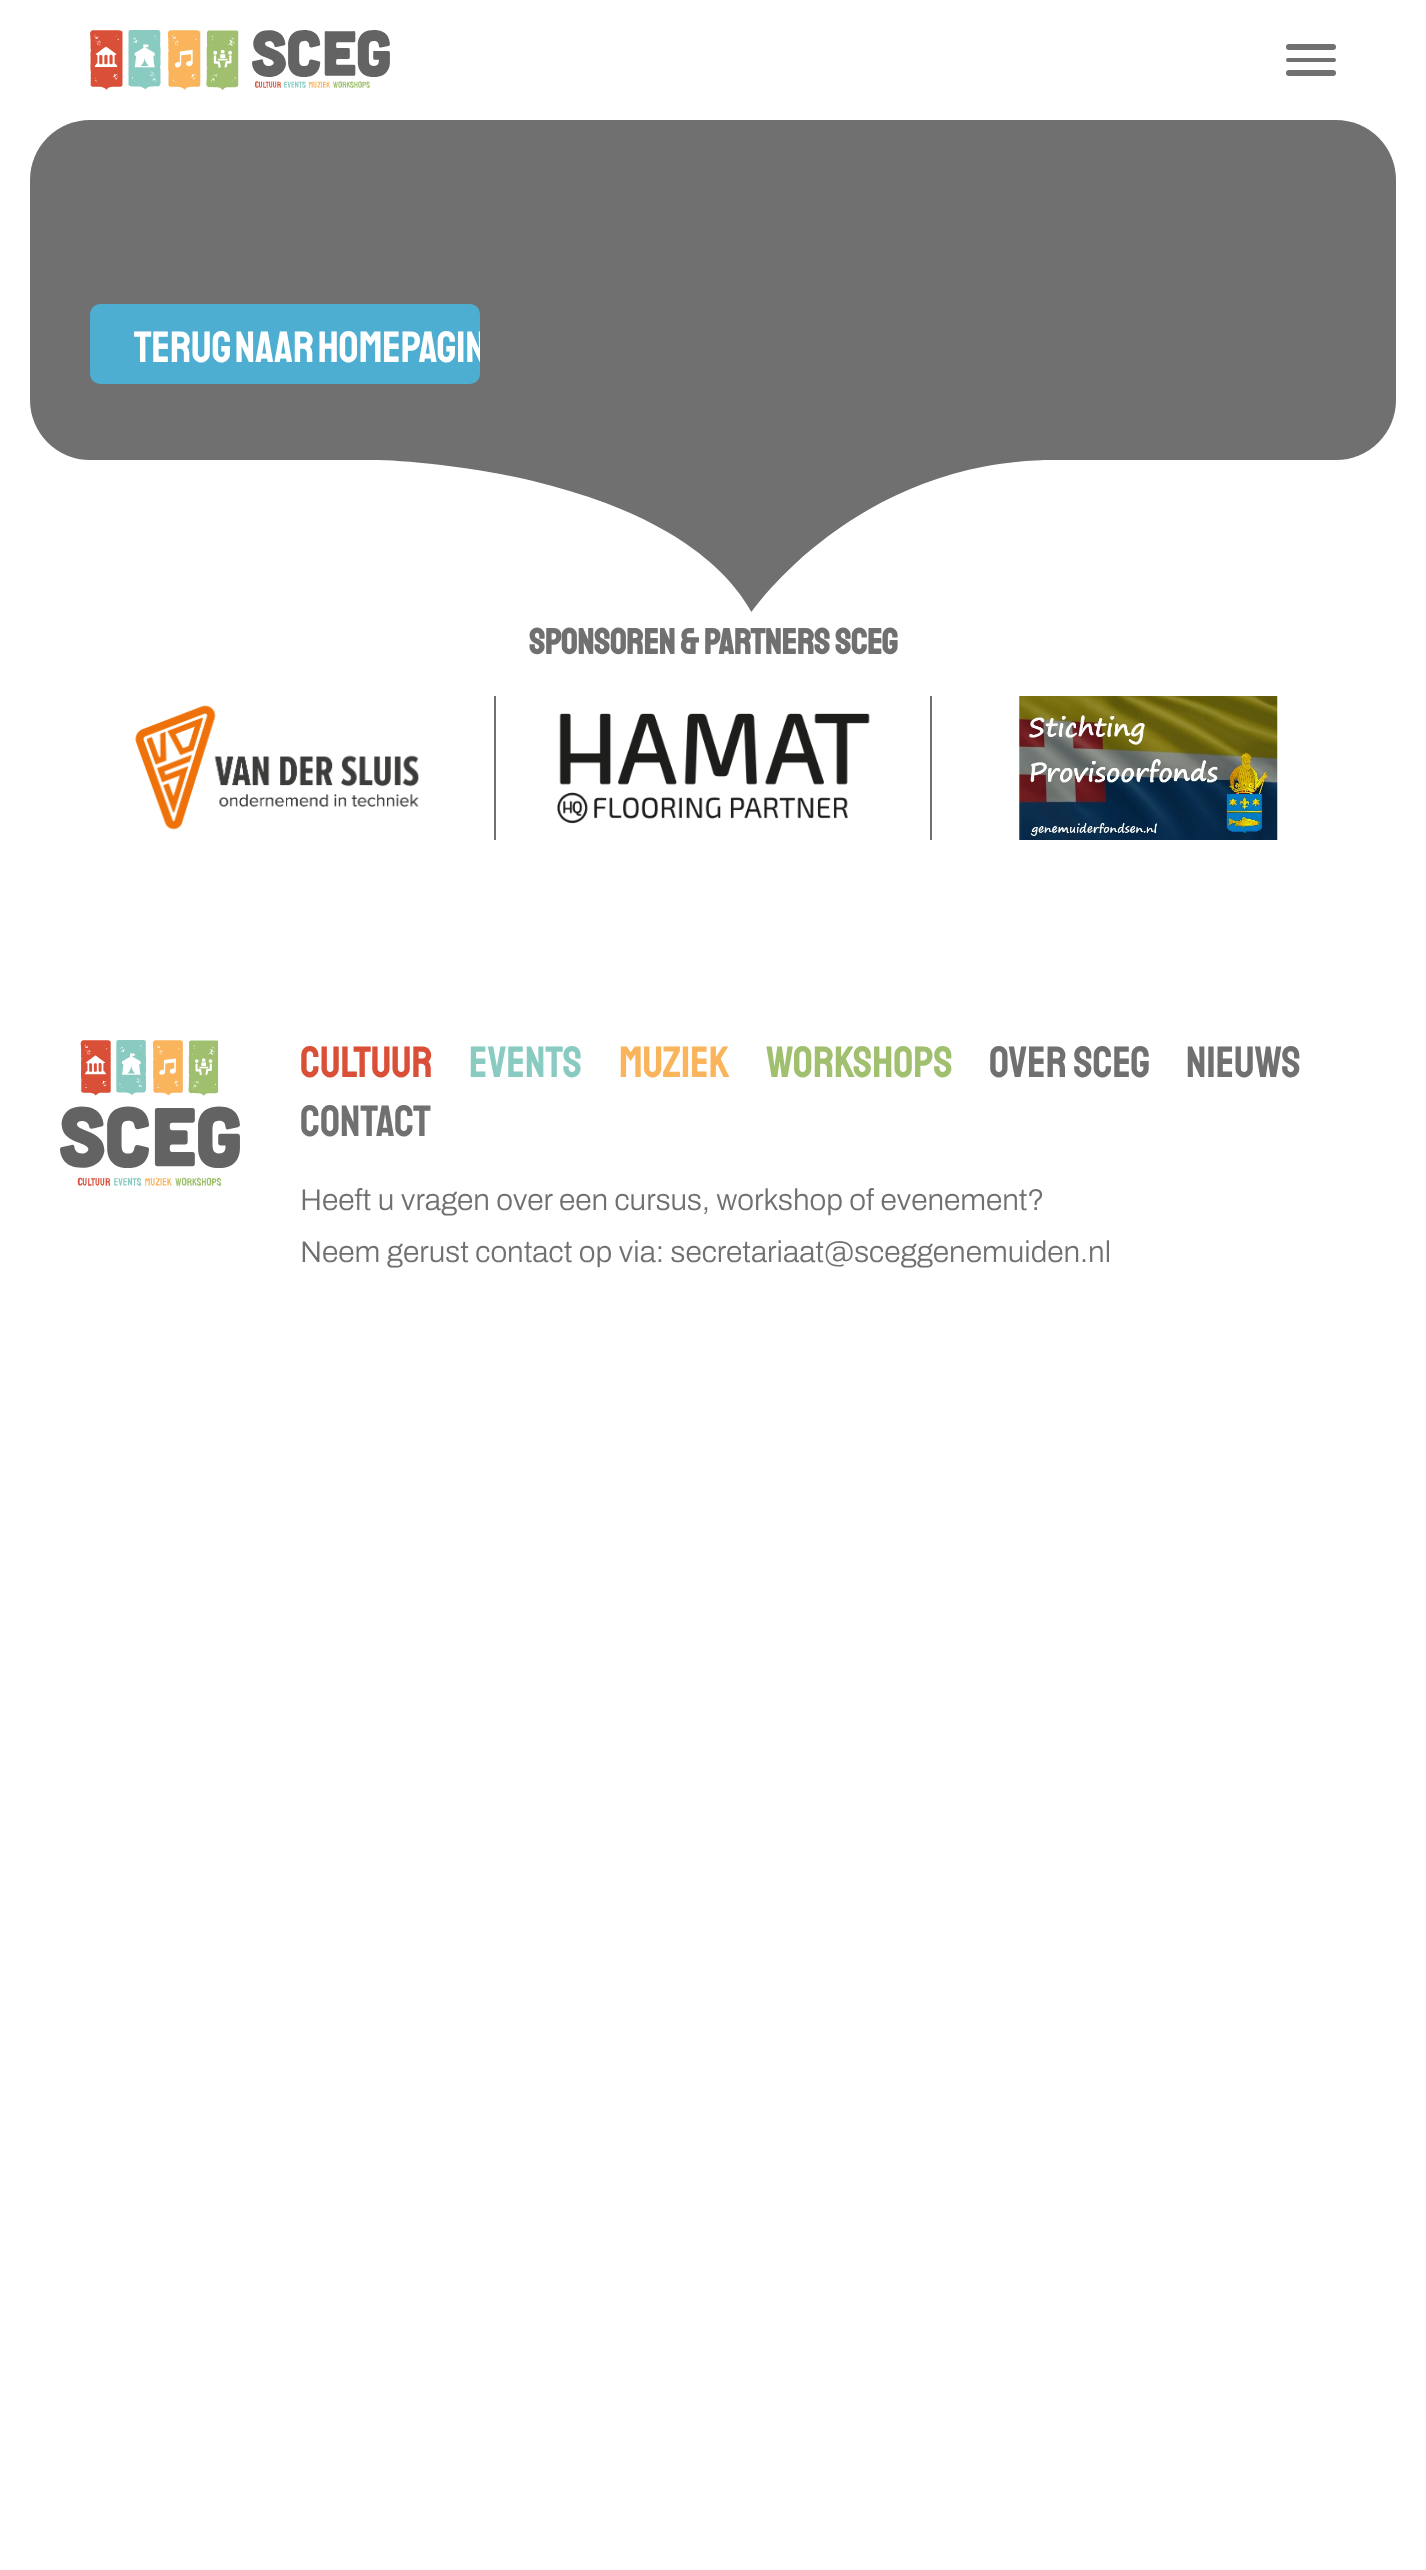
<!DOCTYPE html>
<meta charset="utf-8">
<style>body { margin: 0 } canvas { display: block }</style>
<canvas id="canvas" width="1426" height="2570"></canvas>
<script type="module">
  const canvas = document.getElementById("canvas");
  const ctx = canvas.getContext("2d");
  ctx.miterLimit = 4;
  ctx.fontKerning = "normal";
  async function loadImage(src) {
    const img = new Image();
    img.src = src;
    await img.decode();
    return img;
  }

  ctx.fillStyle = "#ffffff";
  ctx.fillRect(0, 0, 1426, 2570);
  ctx.drawImage(await loadImage("img1.png"), 90, 30, 300, 60);
  ctx.fillStyle = "#707070";
  ctx.beginPath();
  ctx.roundRect(1286, 44, 50, 6, 3);
  ctx.fill();
  ctx.beginPath();
  ctx.roundRect(1286, 58, 50, 4, 2);
  ctx.fill();
  ctx.beginPath();
  ctx.roundRect(1286, 70, 50, 6, 3);
  ctx.fill();
  ctx.beginPath();
  ctx.roundRect(30, 120, 1366, 340, 60);
  ctx.fill();
  ctx.fillStyle = "#4eaed1";
  ctx.beginPath();
  ctx.roundRect(90, 304, 390, 80, 10);
  ctx.fill();
  ctx.save();
  ctx.beginPath();
  ctx.roundRect(90, 304, 390, 80, 10);
  ctx.clip();
  ctx.wordSpacing = "-3px";
  ctx.font = "44px Staatliches";
  ctx.fillStyle = "#ffffff";
  ctx.fillText("TERUG NAAR HOMEPAGIN", 134, 362);
  ctx.restore();
  ctx.drawImage(await loadImage("img2.png"), 379, 460, 665, 152);
  ctx.font = "bold 36px Staatliches";
  ctx.fillStyle = "#707070";
  ctx.fillText("SPONSOREN & PARTNERS SCEG", 529, 654);
  ctx.fillRect(494, 696, 2, 144);
  ctx.drawImage(await loadImage("img3.png"), 135, 705, 284, 125);
  ctx.fillRect(930, 696, 2, 144);
  ctx.drawImage(await loadImage("img4.png"), 557, 713, 313, 111);
  ctx.drawImage(await loadImage("img5.png"), 1019, 696, 259, 144);
  ctx.drawImage(await loadImage("img6.png"), 60, 1040, 180, 146);
  ctx.font = "44px Staatliches";
  ctx.fillStyle = "#da4f37";
  ctx.fillText("CULTUUR", 300, 1077);
  ctx.fillStyle = "#8acbc1";
  ctx.fillText("EVENTS", 469, 1077);
  ctx.fillStyle = "#f9b45c";
  ctx.fillText("MUZIEK", 619, 1077);
  ctx.fillStyle = "#a0c070";
  ctx.fillText("WORKSHOPS", 766, 1077);
  ctx.fillStyle = "#707070";
  ctx.fillText("OVER SCEG", 989, 1077);
  ctx.fillText("NIEUWS", 1186, 1077);
  ctx.fillText("CONTACT", 300, 1136);
  ctx.font = "300 30px Archivo";
  ctx.fillText("Heeft u vragen over een cursus, workshop of evenement?", 300, 1210);
  ctx.fillText("Neem gerust contact op via: secretariaat@sceggenemuiden.nl", 300, 1262);
</script>
